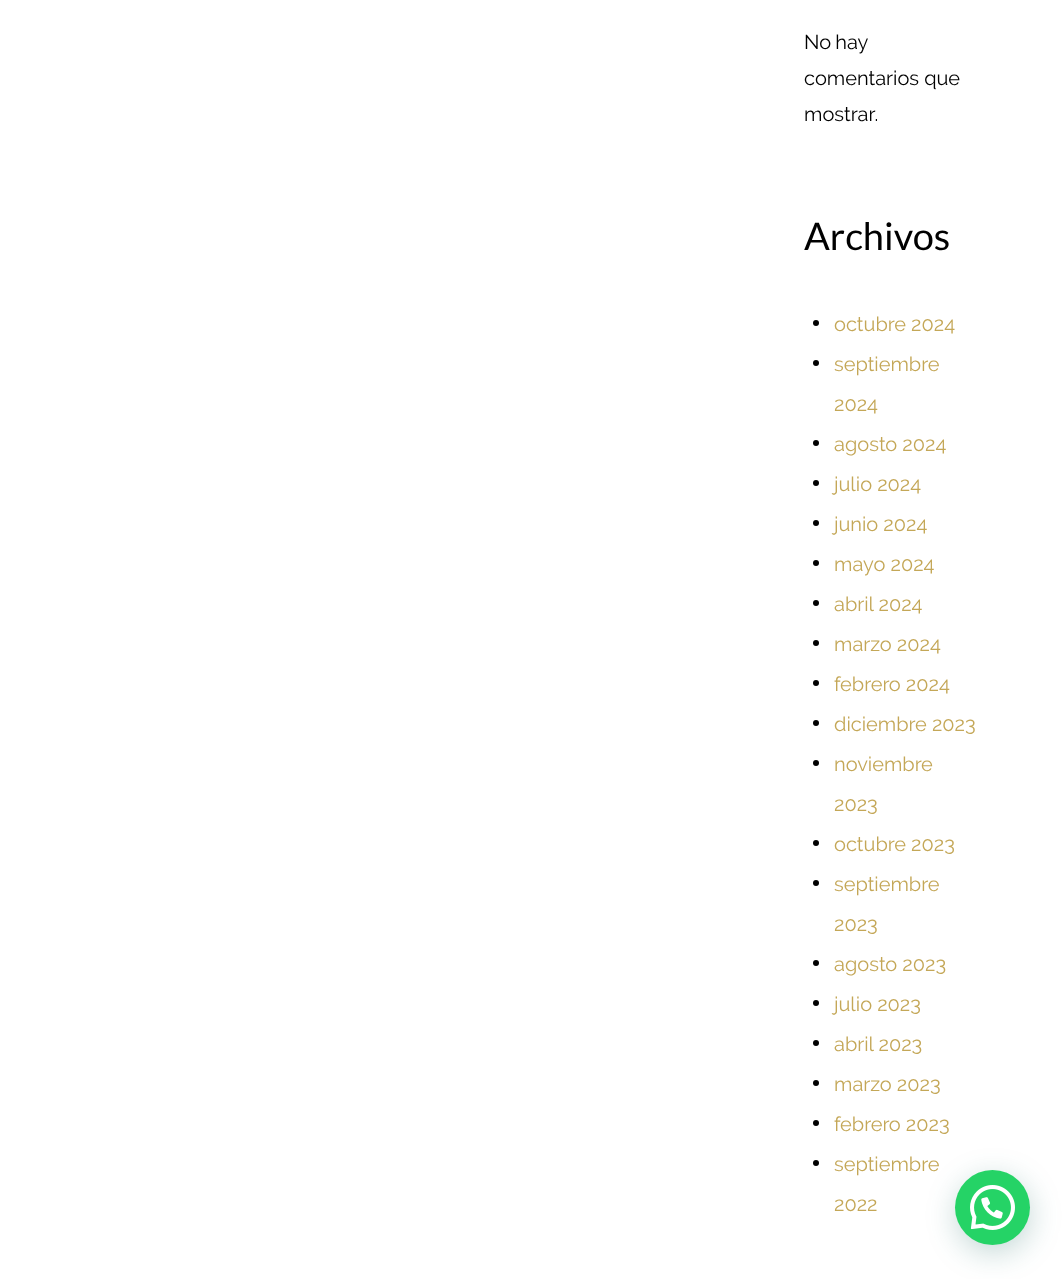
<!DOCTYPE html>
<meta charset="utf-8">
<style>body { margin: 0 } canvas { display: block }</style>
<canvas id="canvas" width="1064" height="1279"></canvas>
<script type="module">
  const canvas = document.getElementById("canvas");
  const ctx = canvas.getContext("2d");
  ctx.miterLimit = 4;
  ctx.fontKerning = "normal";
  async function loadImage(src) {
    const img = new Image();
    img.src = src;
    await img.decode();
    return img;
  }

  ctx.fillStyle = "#ffffff";
  ctx.fillRect(0, 0, 1064, 1279);
  ctx.wordSpacing = "-1px";
  ctx.font = "20px Raleway";
  ctx.fillStyle = "#000000";
  ctx.fillText("No hay", 804, 49);
  ctx.wordSpacing = "0px";
  ctx.fillText("comentarios que", 804, 85);
  ctx.fillText("mostrar.", 804, 121);
  ctx.font = "38px Lato";
  ctx.fillText("Archivos", 804, 250);
  ctx.beginPath();
  ctx.arc(816, 323, 3, 0, Math.PI * 2);
  ctx.fill();
  ctx.font = "20px Raleway";
  ctx.fillStyle = "#c4a757";
  ctx.fillText("octubre 2024", 834, 331);
  ctx.fillStyle = "#000000";
  ctx.beginPath();
  ctx.arc(816, 363, 3, 0, Math.PI * 2);
  ctx.fill();
  ctx.fillStyle = "#c4a757";
  ctx.fillText("septiembre", 834, 371);
  ctx.fillText("2024", 834, 411);
  ctx.fillStyle = "#000000";
  ctx.beginPath();
  ctx.arc(816, 443, 3, 0, Math.PI * 2);
  ctx.fill();
  ctx.fillStyle = "#c4a757";
  ctx.fillText("agosto 2024", 834, 451);
  ctx.fillStyle = "#000000";
  ctx.beginPath();
  ctx.arc(816, 483, 3, 0, Math.PI * 2);
  ctx.fill();
  ctx.fillStyle = "#c4a757";
  ctx.fillText("julio 2024", 834, 491);
  ctx.fillStyle = "#000000";
  ctx.beginPath();
  ctx.arc(816, 523, 3, 0, Math.PI * 2);
  ctx.fill();
  ctx.fillStyle = "#c4a757";
  ctx.fillText("junio 2024", 834, 531);
  ctx.fillStyle = "#000000";
  ctx.beginPath();
  ctx.arc(816, 563, 3, 0, Math.PI * 2);
  ctx.fill();
  ctx.fillStyle = "#c4a757";
  ctx.fillText("mayo 2024", 834, 571);
  ctx.fillStyle = "#000000";
  ctx.beginPath();
  ctx.arc(816, 603, 3, 0, Math.PI * 2);
  ctx.fill();
  ctx.fillStyle = "#c4a757";
  ctx.fillText("abril 2024", 834, 611);
  ctx.fillStyle = "#000000";
  ctx.beginPath();
  ctx.arc(816, 643, 3, 0, Math.PI * 2);
  ctx.fill();
  ctx.fillStyle = "#c4a757";
  ctx.fillText("marzo 2024", 834, 651);
  ctx.fillStyle = "#000000";
  ctx.beginPath();
  ctx.arc(816, 683, 3, 0, Math.PI * 2);
  ctx.fill();
  ctx.fillStyle = "#c4a757";
  ctx.fillText("febrero 2024", 834, 691);
  ctx.fillStyle = "#000000";
  ctx.beginPath();
  ctx.arc(816, 723, 3, 0, Math.PI * 2);
  ctx.fill();
  ctx.fillStyle = "#c4a757";
  ctx.fillText("diciembre 2023", 834, 731);
  ctx.fillStyle = "#000000";
  ctx.beginPath();
  ctx.arc(816, 763, 3, 0, Math.PI * 2);
  ctx.fill();
  ctx.fillStyle = "#c4a757";
  ctx.fillText("noviembre", 834, 771);
  ctx.fillText("2023", 834, 811);
  ctx.fillStyle = "#000000";
  ctx.beginPath();
  ctx.arc(816, 843, 3, 0, Math.PI * 2);
  ctx.fill();
  ctx.fillStyle = "#c4a757";
  ctx.fillText("octubre 2023", 834, 851);
  ctx.fillStyle = "#000000";
  ctx.beginPath();
  ctx.arc(816, 883, 3, 0, Math.PI * 2);
  ctx.fill();
  ctx.fillStyle = "#c4a757";
  ctx.fillText("septiembre", 834, 891);
  ctx.fillText("2023", 834, 931);
  ctx.fillStyle = "#000000";
  ctx.beginPath();
  ctx.arc(816, 963, 3, 0, Math.PI * 2);
  ctx.fill();
  ctx.fillStyle = "#c4a757";
  ctx.fillText("agosto 2023", 834, 971);
  ctx.fillStyle = "#000000";
  ctx.beginPath();
  ctx.arc(816, 1003, 3, 0, Math.PI * 2);
  ctx.fill();
  ctx.fillStyle = "#c4a757";
  ctx.fillText("julio 2023", 834, 1011);
  ctx.fillStyle = "#000000";
  ctx.beginPath();
  ctx.arc(816, 1043, 3, 0, Math.PI * 2);
  ctx.fill();
  ctx.fillStyle = "#c4a757";
  ctx.fillText("abril 2023", 834, 1051);
  ctx.fillStyle = "#000000";
  ctx.beginPath();
  ctx.arc(816, 1083, 3, 0, Math.PI * 2);
  ctx.fill();
  ctx.fillStyle = "#c4a757";
  ctx.fillText("marzo 2023", 834, 1091);
  ctx.fillStyle = "#000000";
  ctx.beginPath();
  ctx.arc(816, 1123, 3, 0, Math.PI * 2);
  ctx.fill();
  ctx.fillStyle = "#c4a757";
  ctx.fillText("febrero 2023", 834, 1131);
  ctx.fillStyle = "#000000";
  ctx.beginPath();
  ctx.arc(816, 1163, 3, 0, Math.PI * 2);
  ctx.fill();
  ctx.fillStyle = "#c4a757";
  ctx.fillText("septiembre", 834, 1171);
  ctx.fillText("2022", 834, 1211);
  ctx.fillStyle = "rgba(7, 94, 84, 0.24)";
  ctx.filter = "blur(15px)";
  ctx.beginPath();
  ctx.roundRect(956, 1178, 75, 75, 37.5);
  ctx.fill();
  ctx.filter = "none";
  ctx.fillStyle = "#25d366";
  ctx.beginPath();
  ctx.arc(992.5, 1207.5, 37.5, 0, Math.PI * 2);
  ctx.fill();
  ctx.drawImage(await loadImage("img1.png"), 970, 1185, 45, 45);
</script>
